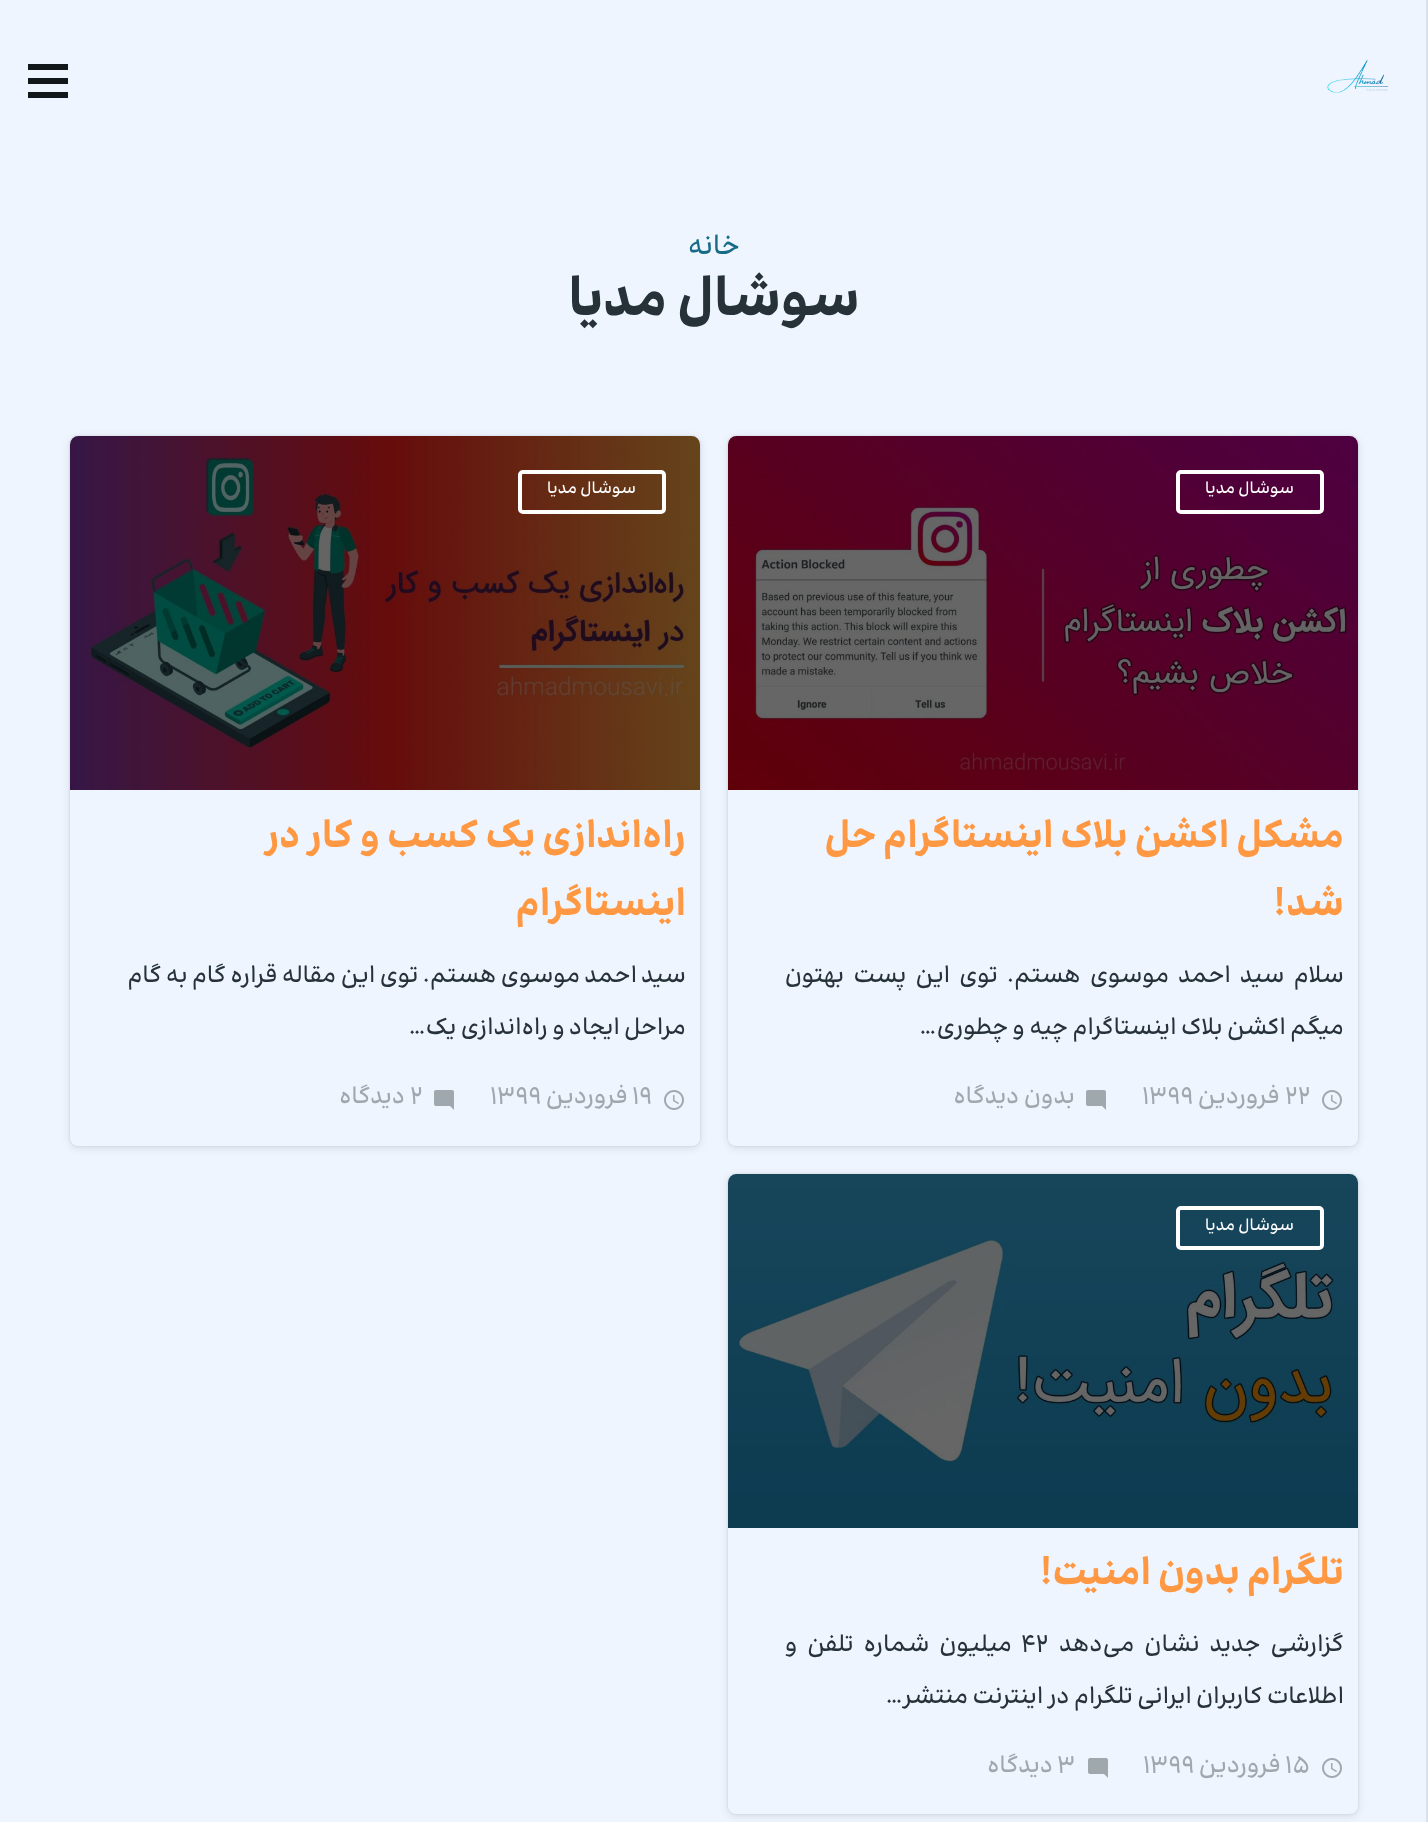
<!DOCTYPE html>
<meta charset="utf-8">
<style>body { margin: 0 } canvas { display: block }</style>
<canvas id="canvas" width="1428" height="1822"></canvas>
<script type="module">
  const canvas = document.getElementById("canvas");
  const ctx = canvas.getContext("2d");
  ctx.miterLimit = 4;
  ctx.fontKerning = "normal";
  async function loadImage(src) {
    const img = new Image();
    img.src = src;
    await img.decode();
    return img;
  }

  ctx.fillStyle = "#eef5ff";
  ctx.fillRect(0, 0, 1428, 1822);
  ctx.fillStyle = "#dbe1eb";
  ctx.fillRect(1426, 0, 2, 1822);
  ctx.fillStyle = "#12171a";
  ctx.fillRect(28, 78, 40, 6);
  ctx.fillRect(28, 64, 40, 6);
  ctx.fillRect(28, 92, 40, 6);
  ctx.drawImage(await loadImage("img1.png"), 1327, 60, 62, 33);
  ctx.direction = "rtl";
  ctx.font = "500 28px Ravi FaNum";
  ctx.fillStyle = "#176b87";
  ctx.fillText("خانه", 740, 254);
  ctx.font = "bold 56px Ravi FaNum";
  ctx.fillStyle = "#263238";
  ctx.fillText("سوشال مدیا", 860, 315);
  ctx.fillStyle = "rgba(0, 0, 0, 0.1)";
  ctx.filter = "blur(4px)";
  ctx.beginPath();
  ctx.roundRect(728, 438, 630, 710, 8);
  ctx.fill();
  ctx.filter = "none";
  ctx.filter = "blur(1px)";
  ctx.beginPath();
  ctx.roundRect(728, 436, 630, 710, 8);
  ctx.fill();
  ctx.filter = "none";
  ctx.fillStyle = "#eef5ff";
  ctx.beginPath();
  ctx.roundRect(728, 436, 630, 710, 8);
  ctx.fill();
  ctx.drawImage(await loadImage("img2.png"), 728, 436, 630, 354);
  ctx.beginPath();
  ctx.roundRect(1178, 472, 144, 40, 3);
  ctx.strokeStyle = "#ffffff";
  ctx.lineWidth = 4;
  ctx.stroke();
  ctx.font = "500 16.75px Ravi FaNum";
  ctx.fillStyle = "#ffffff";
  ctx.fillText("سوشال مدیا", 1294, 493);
  ctx.font = "bold 39.25px Ravi FaNum";
  ctx.fillStyle = "#ff9843";
  ctx.fillText("مشکل اکشن بلاک اینستاگرام حل", 1344, 847);
  ctx.fillText("شد!", 1344, 915);
  ctx.wordSpacing = "4.75px";
  ctx.font = "500 24px Ravi FaNum";
  ctx.fillStyle = "#263238";
  ctx.fillText("سلام سید احمد موسوی هستم. توی این پست بهتون", 1344, 982);
  ctx.wordSpacing = "0px";
  ctx.fillText("میگم اکشن بلاک اینستاگرام چیه و چطوری…", 1344, 1034);
  ctx.drawImage(await loadImage("img3.png"), 1322, 1090, 20, 20);
  ctx.direction = "ltr";
  ctx.fillStyle = "#9ea8ad";
  ctx.fillText("۲۲", 1285, 1103);
  ctx.direction = "rtl";
  ctx.fillText("فروردین", 1280, 1103);
  ctx.direction = "ltr";
  ctx.fillText("۱۳۹۹", 1142, 1103);
  ctx.drawImage(await loadImage("img4.png"), 1086, 1090, 20, 20);
  ctx.direction = "rtl";
  ctx.fillText("بدون دیدگاه", 1075, 1103);
  ctx.fillStyle = "rgba(0, 0, 0, 0.1)";
  ctx.filter = "blur(4px)";
  ctx.beginPath();
  ctx.roundRect(70, 438, 630, 710, 8);
  ctx.fill();
  ctx.filter = "none";
  ctx.filter = "blur(1px)";
  ctx.beginPath();
  ctx.roundRect(70, 436, 630, 710, 8);
  ctx.fill();
  ctx.filter = "none";
  ctx.fillStyle = "#eef5ff";
  ctx.beginPath();
  ctx.roundRect(70, 436, 630, 710, 8);
  ctx.fill();
  ctx.drawImage(await loadImage("img5.png"), 70, 436, 630, 354);
  ctx.beginPath();
  ctx.roundRect(520, 472, 144, 40, 3);
  ctx.stroke();
  ctx.font = "500 16.75px Ravi FaNum";
  ctx.fillStyle = "#ffffff";
  ctx.fillText("سوشال مدیا", 636, 493);
  ctx.font = "bold 39.25px Ravi FaNum";
  ctx.fillStyle = "#ff9843";
  ctx.fillText("راه‌اندازی یک کسب و کار در", 686, 847);
  ctx.fillText("اینستاگرام", 686, 915);
  ctx.font = "500 24px Ravi FaNum";
  ctx.fillStyle = "#263238";
  ctx.fillText("سید احمد موسوی هستم. توی این مقاله قراره گام به گام", 686, 982);
  ctx.fillText("مراحل ایجاد و راه‌اندازی یک…", 686, 1034);
  ctx.drawImage(await loadImage("img3.png"), 664, 1090, 20, 20);
  ctx.direction = "ltr";
  ctx.fillStyle = "#9ea8ad";
  ctx.fillText("۱۹", 632, 1103);
  ctx.direction = "rtl";
  ctx.fillText("فروردین", 628, 1103);
  ctx.direction = "ltr";
  ctx.fillText("۱۳۹۹", 490, 1103);
  ctx.drawImage(await loadImage("img4.png"), 434, 1090, 20, 20);
  ctx.fillText("۲", 410, 1103);
  ctx.direction = "rtl";
  ctx.fillText("دیدگاه", 405, 1103);
  ctx.fillStyle = "rgba(0, 0, 0, 0.1)";
  ctx.filter = "blur(4px)";
  ctx.beginPath();
  ctx.roundRect(728, 1176, 630, 640, 8);
  ctx.fill();
  ctx.filter = "none";
  ctx.filter = "blur(1px)";
  ctx.beginPath();
  ctx.roundRect(728, 1174, 630, 640, 8);
  ctx.fill();
  ctx.filter = "none";
  ctx.fillStyle = "#eef5ff";
  ctx.beginPath();
  ctx.roundRect(728, 1174, 630, 640, 8);
  ctx.fill();
  ctx.drawImage(await loadImage("img6.png"), 728, 1174, 630, 354);
  ctx.beginPath();
  ctx.roundRect(1178, 1208, 144, 40, 3);
  ctx.stroke();
  ctx.font = "500 16.75px Ravi FaNum";
  ctx.fillStyle = "#ffffff";
  ctx.fillText("سوشال مدیا", 1294, 1230);
  ctx.font = "bold 39.25px Ravi FaNum";
  ctx.fillStyle = "#ff9843";
  ctx.fillText("تلگرام بدون امنیت!", 1344, 1584);
  ctx.wordSpacing = "5.5px";
  ctx.font = "500 24px Ravi FaNum";
  ctx.fillStyle = "#263238";
  ctx.fillText("گزارشی جدید نشان می‌دهد", 1344, 1651);
  ctx.wordSpacing = "0px";
  ctx.direction = "ltr";
  ctx.fillText("۴۲", 1021, 1651);
  ctx.wordSpacing = "5.5px";
  ctx.direction = "rtl";
  ctx.fillText("میلیون شماره تلفن و", 1012, 1651);
  ctx.wordSpacing = "0px";
  ctx.fillText("اطلاعات کاربران ایرانی تلگرام در اینترنت منتشر…", 1344, 1703);
  ctx.drawImage(await loadImage("img3.png"), 1322, 1758, 20, 20);
  ctx.direction = "ltr";
  ctx.fillStyle = "#9ea8ad";
  ctx.fillText("۱۵", 1285, 1772);
  ctx.direction = "rtl";
  ctx.fillText("فروردین", 1281, 1772);
  ctx.direction = "ltr";
  ctx.fillText("۱۳۹۹", 1143, 1772);
  ctx.drawImage(await loadImage("img4.png"), 1088, 1758, 20, 20);
  ctx.fillText("۳", 1057, 1772);
  ctx.direction = "rtl";
  ctx.fillText("دیدگاه", 1053, 1772);
</script>
